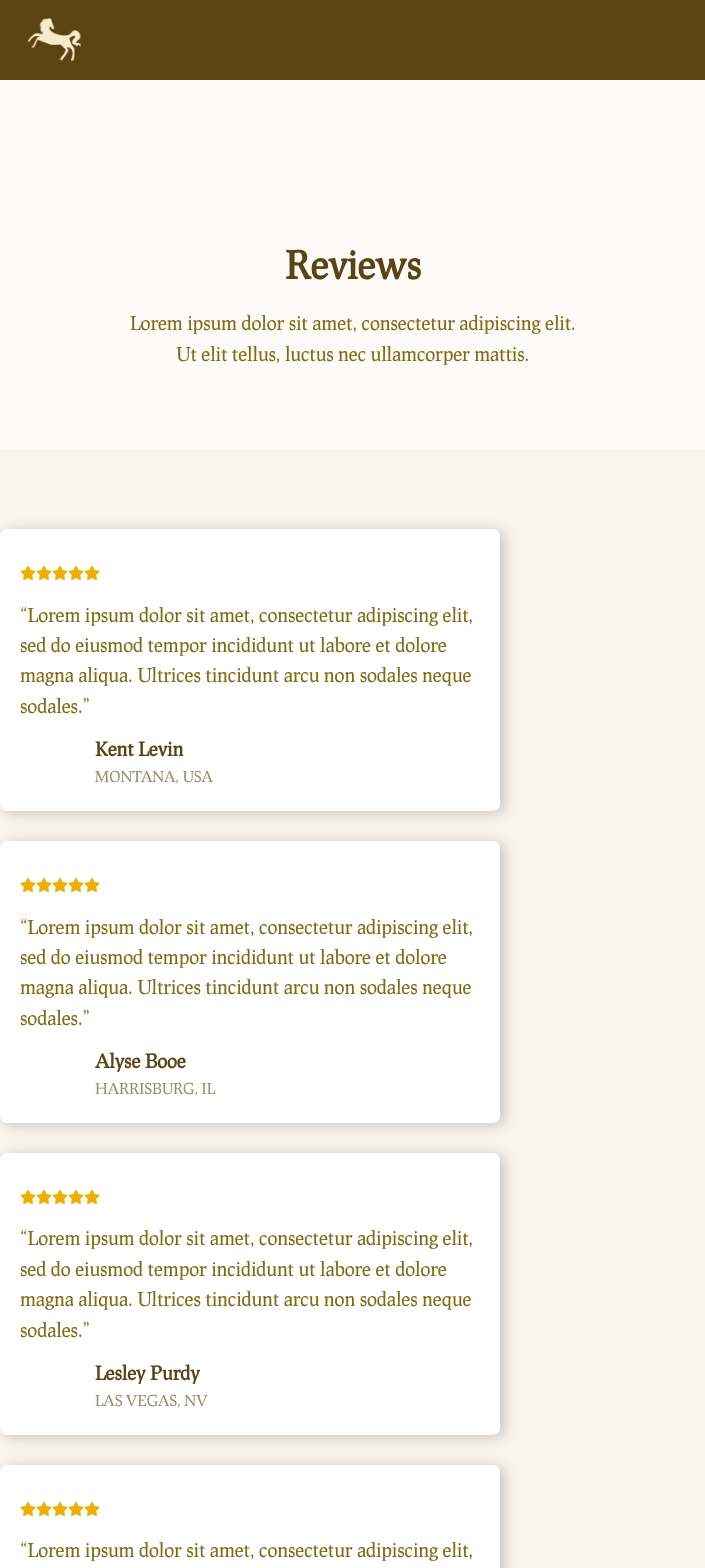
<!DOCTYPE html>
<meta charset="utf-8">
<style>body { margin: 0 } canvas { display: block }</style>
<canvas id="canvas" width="705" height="1568"></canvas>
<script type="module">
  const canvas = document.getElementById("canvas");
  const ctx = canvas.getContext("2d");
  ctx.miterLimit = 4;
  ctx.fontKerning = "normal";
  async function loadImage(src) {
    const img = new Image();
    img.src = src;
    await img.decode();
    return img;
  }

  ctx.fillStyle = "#faf4ed";
  ctx.fillRect(0, 0, 705, 1568);
  ctx.fillStyle = "#5c4312";
  ctx.fillRect(0, 0, 705, 80);
  ctx.drawImage(await loadImage("img1.png"), 27, 17, 54, 44);
  ctx.fillStyle = "#fdfbf8";
  ctx.fillRect(0, 80, 705, 369);
  ctx.font = "bold 38px Prociono";
  ctx.fillStyle = "#5c4312";
  ctx.fillText("Reviews", 285, 279);
  ctx.font = "19px Prociono";
  ctx.fillStyle = "#836915";
  ctx.fillText("Lorem ipsum dolor sit amet, consectetur adipiscing elit.", 130, 330);
  ctx.fillText("Ut elit tellus, luctus nec ullamcorper mattis.", 176, 361);
  ctx.fillStyle = "rgba(0, 0, 0, 0.2)";
  ctx.filter = "blur(7px)";
  ctx.beginPath();
  ctx.roundRect(4, 531, 500, 282, 7);
  ctx.fill();
  ctx.filter = "none";
  ctx.fillStyle = "#ffffff";
  ctx.beginPath();
  ctx.roundRect(0, 529, 500, 282, 7);
  ctx.fill();
  ctx.drawImage(await loadImage("img2.png"), 20, 565, 16, 16);
  ctx.drawImage(await loadImage("img2.png"), 36, 565, 16, 16);
  ctx.drawImage(await loadImage("img2.png"), 52, 565, 16, 16);
  ctx.drawImage(await loadImage("img2.png"), 68, 565, 16, 16);
  ctx.drawImage(await loadImage("img2.png"), 84, 565, 16, 16);
  ctx.fillStyle = "#836915";
  ctx.fillText("“Lorem ipsum dolor sit amet, consectetur adipiscing elit,", 20, 622);
  ctx.fillText("sed do eiusmod tempor incididunt ut labore et dolore", 20, 652);
  ctx.fillText("magna aliqua. Ultrices tincidunt arcu non sodales neque", 20, 682);
  ctx.fillText("sodales.”", 20, 713);
  ctx.font = "bold 19px Prociono";
  ctx.fillStyle = "#5c4312";
  ctx.fillText("Kent Levin", 95, 756);
  ctx.font = "15px Prociono";
  ctx.fillStyle = "#968e71";
  ctx.fillText("MONTANA, USA", 95, 782);
  ctx.fillStyle = "rgba(0, 0, 0, 0.2)";
  ctx.filter = "blur(7px)";
  ctx.beginPath();
  ctx.roundRect(4, 843, 500, 282, 7);
  ctx.fill();
  ctx.filter = "none";
  ctx.fillStyle = "#ffffff";
  ctx.beginPath();
  ctx.roundRect(0, 841, 500, 282, 7);
  ctx.fill();
  ctx.drawImage(await loadImage("img2.png"), 20, 877, 16, 16);
  ctx.drawImage(await loadImage("img2.png"), 36, 877, 16, 16);
  ctx.drawImage(await loadImage("img2.png"), 52, 877, 16, 16);
  ctx.drawImage(await loadImage("img2.png"), 68, 877, 16, 16);
  ctx.drawImage(await loadImage("img2.png"), 84, 877, 16, 16);
  ctx.font = "19px Prociono";
  ctx.fillStyle = "#836915";
  ctx.fillText("“Lorem ipsum dolor sit amet, consectetur adipiscing elit,", 20, 934);
  ctx.fillText("sed do eiusmod tempor incididunt ut labore et dolore", 20, 964);
  ctx.fillText("magna aliqua. Ultrices tincidunt arcu non sodales neque", 20, 994);
  ctx.fillText("sodales.”", 20, 1025);
  ctx.font = "bold 19px Prociono";
  ctx.fillStyle = "#5c4312";
  ctx.fillText("Alyse Booe", 95, 1068);
  ctx.font = "15px Prociono";
  ctx.fillStyle = "#968e71";
  ctx.fillText("HARRISBURG, IL", 95, 1094);
  ctx.fillStyle = "rgba(0, 0, 0, 0.2)";
  ctx.filter = "blur(7px)";
  ctx.beginPath();
  ctx.roundRect(4, 1155, 500, 282, 7);
  ctx.fill();
  ctx.filter = "none";
  ctx.fillStyle = "#ffffff";
  ctx.beginPath();
  ctx.roundRect(0, 1153, 500, 282, 7);
  ctx.fill();
  ctx.drawImage(await loadImage("img2.png"), 20, 1189, 16, 16);
  ctx.drawImage(await loadImage("img2.png"), 36, 1189, 16, 16);
  ctx.drawImage(await loadImage("img2.png"), 52, 1189, 16, 16);
  ctx.drawImage(await loadImage("img2.png"), 68, 1189, 16, 16);
  ctx.drawImage(await loadImage("img2.png"), 84, 1189, 16, 16);
  ctx.font = "19px Prociono";
  ctx.fillStyle = "#836915";
  ctx.fillText("“Lorem ipsum dolor sit amet, consectetur adipiscing elit,", 20, 1245);
  ctx.fillText("sed do eiusmod tempor incididunt ut labore et dolore", 20, 1276);
  ctx.fillText("magna aliqua. Ultrices tincidunt arcu non sodales neque", 20, 1306);
  ctx.fillText("sodales.”", 20, 1337);
  ctx.font = "bold 19px Prociono";
  ctx.fillStyle = "#5c4312";
  ctx.fillText("Lesley Purdy", 95, 1380);
  ctx.font = "15px Prociono";
  ctx.fillStyle = "#968e71";
  ctx.fillText("LAS VEGAS, NV", 95, 1406);
  ctx.fillStyle = "rgba(0, 0, 0, 0.2)";
  ctx.filter = "blur(7px)";
  ctx.beginPath();
  ctx.roundRect(4, 1467, 500, 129, 7);
  ctx.fill();
  ctx.filter = "none";
  ctx.fillStyle = "#ffffff";
  ctx.beginPath();
  ctx.roundRect(0, 1465, 500, 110, 7);
  ctx.fill();
  ctx.drawImage(await loadImage("img2.png"), 20, 1501, 16, 16);
  ctx.drawImage(await loadImage("img2.png"), 36, 1501, 16, 16);
  ctx.drawImage(await loadImage("img2.png"), 52, 1501, 16, 16);
  ctx.drawImage(await loadImage("img2.png"), 68, 1501, 16, 16);
  ctx.drawImage(await loadImage("img2.png"), 84, 1501, 16, 16);
  ctx.font = "19px Prociono";
  ctx.fillStyle = "#836915";
  ctx.fillText("“Lorem ipsum dolor sit amet, consectetur adipiscing elit,", 20, 1557);
</script>
